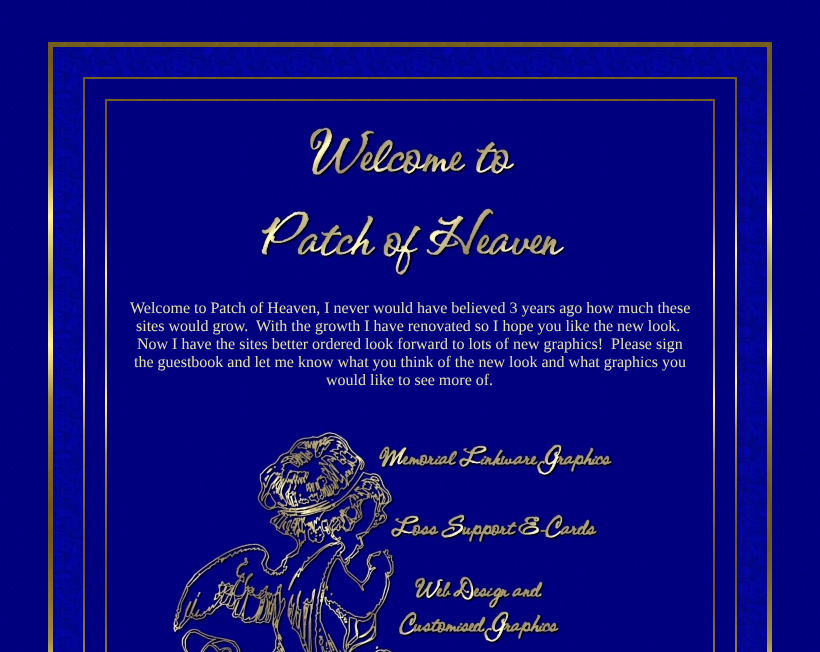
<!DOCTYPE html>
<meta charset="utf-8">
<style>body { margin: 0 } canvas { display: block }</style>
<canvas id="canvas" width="820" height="652"></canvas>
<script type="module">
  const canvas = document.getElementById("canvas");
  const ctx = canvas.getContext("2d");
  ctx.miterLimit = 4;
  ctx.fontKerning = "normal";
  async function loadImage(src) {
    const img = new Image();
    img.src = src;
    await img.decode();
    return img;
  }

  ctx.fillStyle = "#ffffff";
  ctx.fillRect(0, 0, 820, 652);
  ctx.drawImage(await loadImage("img1.png"), 0, 0, 820, 652);
  ctx.drawImage(await loadImage("img2.png"), 48, 42, 724, 610);
  ctx.drawImage(await loadImage("img3.png"), 53, 47, 714, 605);
  ctx.drawImage(await loadImage("img4.png"), 83, 77, 654, 575);
  ctx.drawImage(await loadImage("img5.png"), 85, 79, 650, 573);
  ctx.drawImage(await loadImage("img6.png"), 105, 99, 610, 553);
  ctx.drawImage(await loadImage("img7.png"), 107, 101, 606, 551);
  ctx.drawImage(await loadImage("img8.png"), 251, 121, 318, 160);
  ctx.font = "16px Liberation Serif";
  ctx.fillStyle = "#e3e0a8";
  ctx.fillText("Welcome to Patch of Heaven, I never would have believed 3 years ago how much these", 130, 313);
  ctx.fillText("sites would grow.  With the growth I have renovated so I hope you like the new look.", 136, 331);
  ctx.fillText("Now I have the sites better ordered look forward to lots of new graphics!  Please sign", 137, 349);
  ctx.fillText("the guestbook and let me know what you think of the new look and what graphics you", 134, 367);
  ctx.fillText("would like to see more of.", 326, 385);
  ctx.drawImage(await loadImage("img9.png"), 163, 423, 460, 69);
  ctx.drawImage(await loadImage("img10.png"), 178, 492, 451, 67);
  ctx.drawImage(await loadImage("img11.png"), 167, 559, 484, 93);
</script>
